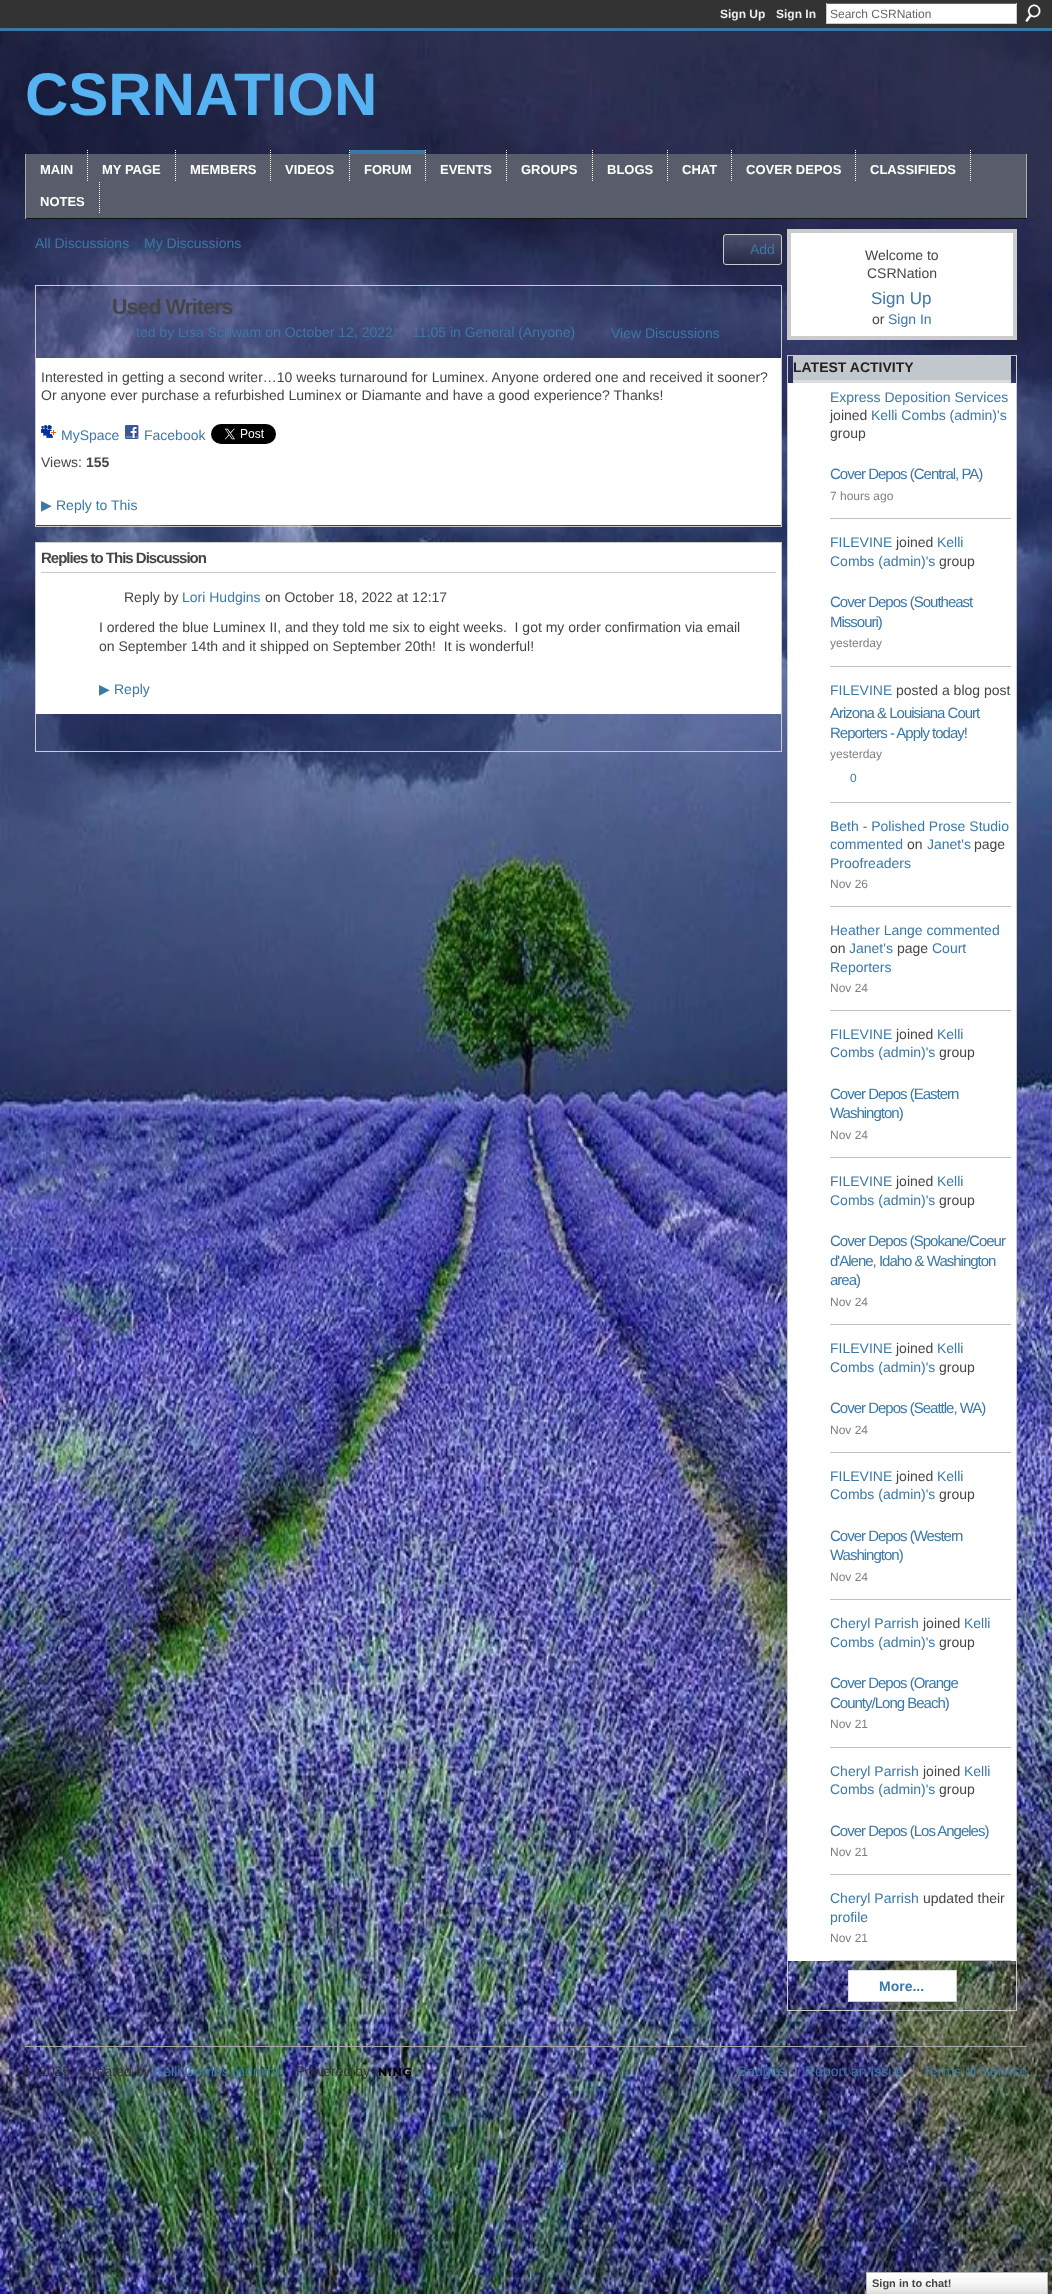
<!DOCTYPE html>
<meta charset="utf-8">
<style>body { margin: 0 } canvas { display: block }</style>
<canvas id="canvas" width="1052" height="2294"></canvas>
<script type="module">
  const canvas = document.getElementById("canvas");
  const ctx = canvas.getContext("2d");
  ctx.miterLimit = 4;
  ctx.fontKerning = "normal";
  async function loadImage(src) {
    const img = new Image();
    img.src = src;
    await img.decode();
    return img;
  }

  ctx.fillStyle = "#ffffff";
  ctx.fillRect(0, 0, 1052, 2294);
  ctx.drawImage(await loadImage("img1.png"), 0, 31, 1052, 2263);
  ctx.fillStyle = "#333333";
  ctx.fillRect(0, 0, 1052, 28);
  ctx.font = "bold 12px Liberation Sans";
  ctx.fillStyle = "#eeeeee";
  ctx.fillText("Sign Up", 720, 18);
  ctx.fillText("Sign In", 776, 18);
  ctx.fillStyle = "#ffffff";
  ctx.fillRect(827, 4, 189, 19);
  ctx.fillStyle = "#666666";
  ctx.fillRect(826, 3, 191, 1);
  ctx.fillStyle = "#cccccc";
  ctx.fillRect(1016, 3, 1, 21);
  ctx.fillRect(826, 23, 191, 1);
  ctx.fillRect(826, 3, 1, 21);
  ctx.font = "12px Liberation Sans";
  ctx.fillStyle = "#666666";
  ctx.fillText("Search CSRNation", 830, 18);
  ctx.drawImage(await loadImage("img2.png"), 1025, 4, 16, 18);
  ctx.fillStyle = "#3c78a7";
  ctx.fillRect(0, 28, 1052, 3);
  ctx.font = "bold 60px Liberation Sans";
  ctx.fillStyle = "#57b2f2";
  ctx.fillText("CSRNATION", 25, 115);
  ctx.fillStyle = "#595d6b";
  ctx.fillRect(26, 154, 1000, 64);
  ctx.fillStyle = "#aaaaaa";
  ctx.fillRect(1026, 154, 1, 65);
  ctx.fillStyle = "#111111";
  ctx.fillRect(25, 218, 1002, 1);
  ctx.fillStyle = "#aaaaaa";
  ctx.fillRect(25, 154, 1, 65);
  ctx.beginPath();
  ctx.moveTo(87.5, 150);
  ctx.lineTo(87.5, 182);
  ctx.strokeStyle = "#ffffff";
  ctx.setLineDash([1, 1]);
  ctx.stroke();
  ctx.font = "bold 13px Liberation Sans";
  ctx.fillStyle = "#ffffff";
  ctx.fillText("MAIN", 40, 174);
  ctx.beginPath();
  ctx.moveTo(175.5, 150);
  ctx.lineTo(175.5, 182);
  ctx.stroke();
  ctx.fillText("MY PAGE", 102, 174);
  ctx.beginPath();
  ctx.moveTo(270.5, 150);
  ctx.lineTo(270.5, 182);
  ctx.stroke();
  ctx.fillText("MEMBERS", 190, 174);
  ctx.beginPath();
  ctx.moveTo(349.5, 150);
  ctx.lineTo(349.5, 182);
  ctx.stroke();
  ctx.fillText("VIDEOS", 285, 174);
  ctx.fillStyle = "#3c78a7";
  ctx.beginPath();
  ctx.moveTo(350, 150);
  ctx.lineTo(426, 150);
  ctx.lineTo(425, 154);
  ctx.lineTo(350, 154);
  ctx.closePath();
  ctx.fill();
  ctx.beginPath();
  ctx.moveTo(425.5, 150);
  ctx.lineTo(425.5, 182);
  ctx.stroke();
  ctx.fillStyle = "#ffffff";
  ctx.fillText("FORUM", 364, 174);
  ctx.beginPath();
  ctx.moveTo(506.5, 150);
  ctx.lineTo(506.5, 182);
  ctx.stroke();
  ctx.fillText("EVENTS", 440, 174);
  ctx.beginPath();
  ctx.moveTo(592.5, 150);
  ctx.lineTo(592.5, 182);
  ctx.stroke();
  ctx.fillText("GROUPS", 521, 174);
  ctx.beginPath();
  ctx.moveTo(667.5, 150);
  ctx.lineTo(667.5, 182);
  ctx.stroke();
  ctx.fillText("BLOGS", 607, 174);
  ctx.beginPath();
  ctx.moveTo(731.5, 150);
  ctx.lineTo(731.5, 182);
  ctx.stroke();
  ctx.fillText("CHAT", 682, 174);
  ctx.beginPath();
  ctx.moveTo(855.5, 150);
  ctx.lineTo(855.5, 182);
  ctx.stroke();
  ctx.fillText("COVER DEPOS", 746, 174);
  ctx.beginPath();
  ctx.moveTo(970.5, 150);
  ctx.lineTo(970.5, 182);
  ctx.stroke();
  ctx.fillText("CLASSIFIEDS", 870, 174);
  ctx.beginPath();
  ctx.moveTo(99.5, 182);
  ctx.lineTo(99.5, 214);
  ctx.stroke();
  ctx.fillText("NOTES", 40, 206);
  ctx.font = "14px Liberation Sans";
  ctx.fillStyle = "#3c78a7";
  ctx.fillText("All Discussions", 35, 248);
  ctx.fillText("My Discussions", 144, 248);
  ctx.drawImage(await loadImage("img3.png"), 723, 235, 59, 30);
  ctx.beginPath();
  ctx.roundRect(723.5, 234.5, 58, 30, 2.5);
  ctx.strokeStyle = "#cbcbcb";
  ctx.setLineDash([]);
  ctx.stroke();
  ctx.fillText("Add", 750, 254);
  ctx.strokeStyle = "#cccccc";
  ctx.strokeRect(35.5, 285.5, 746, 241);
  ctx.letterSpacing = "-1px";
  ctx.font = "bold 21.5px Liberation Sans";
  ctx.fillStyle = "#454545";
  ctx.fillText("Used Writers", 112, 314);
  ctx.letterSpacing = "0px";
  ctx.font = "14px Liberation Sans";
  ctx.fillStyle = "#3c78a7";
  ctx.fillText("ted by Lisa Schwam on October 12, 2022", 136, 337);
  ctx.fillText("11:05 in General (Anyone)", 412, 337);
  ctx.fillText("View Discussions", 611, 338);
  ctx.fillStyle = "#ffffff";
  ctx.fillRect(36, 358, 745, 167);
  ctx.fillStyle = "#454545";
  ctx.fillText("Interested in getting a second writer…10 weeks turnaround for Luminex. Anyone ordered one and received it sooner?", 41, 382);
  ctx.fillText("Or anyone ever purchase a refurbished Luminex or Diamante and have a good experience? Thanks!", 41, 400);
  ctx.drawImage(await loadImage("img4.png"), 41, 425, 15, 13);
  ctx.fillStyle = "#3c78a7";
  ctx.fillText("MySpace", 61, 440);
  ctx.drawImage(await loadImage("img5.png"), 125, 425, 14, 14);
  ctx.fillText("Facebook", 144, 440);
  ctx.drawImage(await loadImage("img6.png"), 211, 424, 65, 20);
  ctx.fillStyle = "#454545";
  ctx.fillText("Views:", 41, 467);
  ctx.font = "bold 14px Liberation Sans";
  ctx.fillText("155", 86, 467);
  ctx.font = "14px DejaVu Sans";
  ctx.fillStyle = "#3c78a7";
  ctx.fillText("▶", 41, 510);
  ctx.font = "14px Liberation Sans";
  ctx.fillText("Reply to This", 56, 510);
  ctx.strokeRect(35.5, 542.5, 746, 209);
  ctx.fillStyle = "#ffffff";
  ctx.fillRect(36, 543, 745, 171);
  ctx.letterSpacing = "-1px";
  ctx.font = "bold 15px Liberation Sans";
  ctx.fillStyle = "#454545";
  ctx.fillText("Replies to This Discussion", 41, 563);
  ctx.fillStyle = "#cbcbcb";
  ctx.fillRect(41, 572, 735, 1);
  ctx.letterSpacing = "0px";
  ctx.font = "14px Liberation Sans";
  ctx.fillStyle = "#454545";
  ctx.fillText("Reply by", 124, 602);
  ctx.fillStyle = "#3c78a7";
  ctx.fillText("Lori Hudgins", 182, 602);
  ctx.fillStyle = "#454545";
  ctx.fillText("on October 18, 2022 at 12:17", 265, 602);
  ctx.fillText("I ordered the blue Luminex II, and they told me six to eight weeks.  I got my order confirmation via email", 99, 632);
  ctx.fillText("on September 14th and it shipped on September 20th!  It is wonderful!", 99, 651);
  ctx.font = "14px DejaVu Sans";
  ctx.fillStyle = "#3c78a7";
  ctx.fillText("▶", 99, 694);
  ctx.font = "14px Liberation Sans";
  ctx.fillText("Reply", 114, 694);
  ctx.strokeRect(787.5, 229.5, 229, 110);
  ctx.fillStyle = "#ffffff";
  ctx.beginPath();
  ctx.rect(789.5, 231.5, 225, 106);
  ctx.fill();
  ctx.strokeStyle = "#cbcbcb";
  ctx.lineWidth = 3;
  ctx.stroke();
  ctx.fillStyle = "#454545";
  ctx.fillText("Welcome to", 865, 260);
  ctx.fillText("CSRNation", 867, 278);
  ctx.font = "17px Liberation Sans";
  ctx.fillStyle = "#3c78a7";
  ctx.fillText("Sign Up", 871, 304);
  ctx.font = "14px Liberation Sans";
  ctx.fillStyle = "#454545";
  ctx.fillText("or", 872, 324);
  ctx.fillStyle = "#3c78a7";
  ctx.fillText("Sign In", 888, 324);
  ctx.strokeStyle = "#cccccc";
  ctx.lineWidth = 1;
  ctx.strokeRect(787.5, 355.5, 229, 1655);
  ctx.fillStyle = "#c2c7cc";
  ctx.fillRect(793, 356, 218, 24);
  ctx.fillStyle = "#dcdcdc";
  ctx.fillRect(793, 380, 218, 3);
  ctx.font = "bold 14px Liberation Sans";
  ctx.fillStyle = "#222222";
  ctx.fillText("LATEST ACTIVITY", 793, 372);
  ctx.fillStyle = "#ffffff";
  ctx.fillRect(788, 383, 228, 1578);
  ctx.fillStyle = "#c0c0c0";
  ctx.fillRect(830, 518, 181, 1);
  ctx.font = "14px Liberation Sans";
  ctx.fillStyle = "#3c78a7";
  ctx.fillText("Express Deposition Services", 830, 402);
  ctx.fillStyle = "#454545";
  ctx.fillText("joined", 830, 420);
  ctx.fillStyle = "#3c78a7";
  ctx.fillText("Kelli Combs (admin)'s", 871, 420);
  ctx.fillStyle = "#454545";
  ctx.fillText("group", 830, 438);
  ctx.letterSpacing = "-1px";
  ctx.font = "15px Liberation Sans";
  ctx.fillStyle = "#3c78a7";
  ctx.fillText("Cover Depos (Central, PA)", 830, 479);
  ctx.letterSpacing = "0px";
  ctx.font = "12px Liberation Sans";
  ctx.fillStyle = "#7f7f7f";
  ctx.fillText("7 hours ago", 830, 500);
  ctx.fillStyle = "#c0c0c0";
  ctx.fillRect(830, 666, 181, 1);
  ctx.font = "14px Liberation Sans";
  ctx.fillStyle = "#3c78a7";
  ctx.fillText("FILEVINE", 830, 547);
  ctx.fillStyle = "#454545";
  ctx.fillText("joined", 896, 547);
  ctx.fillStyle = "#3c78a7";
  ctx.fillText("Kelli", 937, 547);
  ctx.fillText("Combs (admin)'s", 830, 566);
  ctx.fillStyle = "#454545";
  ctx.fillText("group", 939, 566);
  ctx.letterSpacing = "-1px";
  ctx.font = "15px Liberation Sans";
  ctx.fillStyle = "#3c78a7";
  ctx.fillText("Cover Depos (Southeast", 830, 607);
  ctx.fillText("Missouri)", 830, 627);
  ctx.letterSpacing = "0px";
  ctx.font = "12px Liberation Sans";
  ctx.fillStyle = "#7f7f7f";
  ctx.fillText("yesterday", 830, 647);
  ctx.fillStyle = "#c0c0c0";
  ctx.fillRect(830, 802, 181, 1);
  ctx.font = "14px Liberation Sans";
  ctx.fillStyle = "#3c78a7";
  ctx.fillText("FILEVINE", 830, 695);
  ctx.fillStyle = "#454545";
  ctx.fillText("posted a blog post", 896, 695);
  ctx.letterSpacing = "-1px";
  ctx.font = "15px Liberation Sans";
  ctx.fillStyle = "#3c78a7";
  ctx.fillText("Arizona & Louisiana Court", 830, 718);
  ctx.fillText("Reporters - Apply today!", 830, 738);
  ctx.letterSpacing = "0px";
  ctx.font = "12px Liberation Sans";
  ctx.fillStyle = "#7f7f7f";
  ctx.fillText("yesterday", 830, 758);
  ctx.fillStyle = "#3c78a7";
  ctx.fillText("0", 850, 782);
  ctx.fillStyle = "#c0c0c0";
  ctx.fillRect(830, 906, 181, 1);
  ctx.font = "14px Liberation Sans";
  ctx.fillStyle = "#3c78a7";
  ctx.fillText("Beth - Polished Prose Studio", 830, 831);
  ctx.fillText("commented", 830, 849);
  ctx.fillStyle = "#454545";
  ctx.fillText("on", 907, 849);
  ctx.fillStyle = "#3c78a7";
  ctx.fillText("Janet's", 927, 849);
  ctx.fillStyle = "#454545";
  ctx.fillText("page", 974, 849);
  ctx.fillStyle = "#3c78a7";
  ctx.fillText("Proofreaders", 830, 868);
  ctx.font = "12px Liberation Sans";
  ctx.fillStyle = "#7f7f7f";
  ctx.fillText("Nov 26", 830, 888);
  ctx.fillStyle = "#c0c0c0";
  ctx.fillRect(830, 1010, 181, 1);
  ctx.font = "14px Liberation Sans";
  ctx.fillStyle = "#3c78a7";
  ctx.fillText("Heather Lange commented", 830, 935);
  ctx.fillStyle = "#454545";
  ctx.fillText("on", 830, 953);
  ctx.fillStyle = "#3c78a7";
  ctx.fillText("Janet's", 849, 953);
  ctx.fillStyle = "#454545";
  ctx.fillText("page", 897, 953);
  ctx.fillStyle = "#3c78a7";
  ctx.fillText("Court", 932, 953);
  ctx.fillText("Reporters", 830, 972);
  ctx.font = "12px Liberation Sans";
  ctx.fillStyle = "#7f7f7f";
  ctx.fillText("Nov 24", 830, 992);
  ctx.fillStyle = "#c0c0c0";
  ctx.fillRect(830, 1157, 181, 1);
  ctx.font = "14px Liberation Sans";
  ctx.fillStyle = "#3c78a7";
  ctx.fillText("FILEVINE", 830, 1039);
  ctx.fillStyle = "#454545";
  ctx.fillText("joined", 896, 1039);
  ctx.fillStyle = "#3c78a7";
  ctx.fillText("Kelli", 937, 1039);
  ctx.fillText("Combs (admin)'s", 830, 1057);
  ctx.fillStyle = "#454545";
  ctx.fillText("group", 939, 1057);
  ctx.letterSpacing = "-1px";
  ctx.font = "15px Liberation Sans";
  ctx.fillStyle = "#3c78a7";
  ctx.fillText("Cover Depos (Eastern", 830, 1099);
  ctx.fillText("Washington)", 830, 1118);
  ctx.letterSpacing = "0px";
  ctx.font = "12px Liberation Sans";
  ctx.fillStyle = "#7f7f7f";
  ctx.fillText("Nov 24", 830, 1139);
  ctx.fillStyle = "#c0c0c0";
  ctx.fillRect(830, 1324, 181, 1);
  ctx.font = "14px Liberation Sans";
  ctx.fillStyle = "#3c78a7";
  ctx.fillText("FILEVINE", 830, 1186);
  ctx.fillStyle = "#454545";
  ctx.fillText("joined", 896, 1186);
  ctx.fillStyle = "#3c78a7";
  ctx.fillText("Kelli", 937, 1186);
  ctx.fillText("Combs (admin)'s", 830, 1205);
  ctx.fillStyle = "#454545";
  ctx.fillText("group", 939, 1205);
  ctx.letterSpacing = "-1px";
  ctx.font = "15px Liberation Sans";
  ctx.fillStyle = "#3c78a7";
  ctx.fillText("Cover Depos (Spokane/Coeur", 830, 1246);
  ctx.fillText("d'Alene, Idaho & Washington", 830, 1266);
  ctx.fillText("area)", 830, 1285);
  ctx.letterSpacing = "0px";
  ctx.font = "12px Liberation Sans";
  ctx.fillStyle = "#7f7f7f";
  ctx.fillText("Nov 24", 830, 1306);
  ctx.fillStyle = "#c0c0c0";
  ctx.fillRect(830, 1452, 181, 1);
  ctx.font = "14px Liberation Sans";
  ctx.fillStyle = "#3c78a7";
  ctx.fillText("FILEVINE", 830, 1353);
  ctx.fillStyle = "#454545";
  ctx.fillText("joined", 896, 1353);
  ctx.fillStyle = "#3c78a7";
  ctx.fillText("Kelli", 937, 1353);
  ctx.fillText("Combs (admin)'s", 830, 1372);
  ctx.fillStyle = "#454545";
  ctx.fillText("group", 939, 1372);
  ctx.letterSpacing = "-1px";
  ctx.font = "15px Liberation Sans";
  ctx.fillStyle = "#3c78a7";
  ctx.fillText("Cover Depos (Seattle, WA)", 830, 1413);
  ctx.letterSpacing = "0px";
  ctx.font = "12px Liberation Sans";
  ctx.fillStyle = "#7f7f7f";
  ctx.fillText("Nov 24", 830, 1434);
  ctx.fillStyle = "#c0c0c0";
  ctx.fillRect(830, 1599, 181, 1);
  ctx.font = "14px Liberation Sans";
  ctx.fillStyle = "#3c78a7";
  ctx.fillText("FILEVINE", 830, 1481);
  ctx.fillStyle = "#454545";
  ctx.fillText("joined", 896, 1481);
  ctx.fillStyle = "#3c78a7";
  ctx.fillText("Kelli", 937, 1481);
  ctx.fillText("Combs (admin)'s", 830, 1499);
  ctx.fillStyle = "#454545";
  ctx.fillText("group", 939, 1499);
  ctx.letterSpacing = "-1px";
  ctx.font = "15px Liberation Sans";
  ctx.fillStyle = "#3c78a7";
  ctx.fillText("Cover Depos (Western", 830, 1541);
  ctx.fillText("Washington)", 830, 1560);
  ctx.letterSpacing = "0px";
  ctx.font = "12px Liberation Sans";
  ctx.fillStyle = "#7f7f7f";
  ctx.fillText("Nov 24", 830, 1581);
  ctx.fillStyle = "#c0c0c0";
  ctx.fillRect(830, 1747, 181, 1);
  ctx.font = "14px Liberation Sans";
  ctx.fillStyle = "#3c78a7";
  ctx.fillText("Cheryl Parrish", 830, 1628);
  ctx.fillStyle = "#454545";
  ctx.fillText("joined", 923, 1628);
  ctx.fillStyle = "#3c78a7";
  ctx.fillText("Kelli", 964, 1628);
  ctx.fillText("Combs (admin)'s", 830, 1647);
  ctx.fillStyle = "#454545";
  ctx.fillText("group", 939, 1647);
  ctx.letterSpacing = "-1px";
  ctx.font = "15px Liberation Sans";
  ctx.fillStyle = "#3c78a7";
  ctx.fillText("Cover Depos (Orange", 830, 1688);
  ctx.fillText("County/Long Beach)", 830, 1708);
  ctx.letterSpacing = "0px";
  ctx.font = "12px Liberation Sans";
  ctx.fillStyle = "#7f7f7f";
  ctx.fillText("Nov 21", 830, 1728);
  ctx.fillStyle = "#c0c0c0";
  ctx.fillRect(830, 1874, 181, 1);
  ctx.font = "14px Liberation Sans";
  ctx.fillStyle = "#3c78a7";
  ctx.fillText("Cheryl Parrish", 830, 1776);
  ctx.fillStyle = "#454545";
  ctx.fillText("joined", 923, 1776);
  ctx.fillStyle = "#3c78a7";
  ctx.fillText("Kelli", 964, 1776);
  ctx.fillText("Combs (admin)'s", 830, 1794);
  ctx.fillStyle = "#454545";
  ctx.fillText("group", 939, 1794);
  ctx.letterSpacing = "-1px";
  ctx.font = "15px Liberation Sans";
  ctx.fillStyle = "#3c78a7";
  ctx.fillText("Cover Depos (Los Angeles)", 830, 1836);
  ctx.letterSpacing = "0px";
  ctx.font = "12px Liberation Sans";
  ctx.fillStyle = "#7f7f7f";
  ctx.fillText("Nov 21", 830, 1856);
  ctx.fillStyle = "#c0c0c0";
  ctx.fillRect(830, 1960, 181, 1);
  ctx.font = "14px Liberation Sans";
  ctx.fillStyle = "#3c78a7";
  ctx.fillText("Cheryl Parrish", 830, 1903);
  ctx.fillStyle = "#454545";
  ctx.fillText("updated their", 923, 1903);
  ctx.fillStyle = "#3c78a7";
  ctx.fillText("profile", 830, 1922);
  ctx.font = "12px Liberation Sans";
  ctx.fillStyle = "#7f7f7f";
  ctx.fillText("Nov 21", 830, 1942);
  ctx.fillStyle = "#ffffff";
  ctx.fillRect(849, 1971, 107, 30);
  ctx.fillStyle = "#e1e1e1";
  ctx.fillRect(848, 1970, 109, 1);
  ctx.fillStyle = "#cccccc";
  ctx.fillRect(956, 1970, 1, 32);
  ctx.fillRect(848, 2001, 109, 1);
  ctx.fillStyle = "#e1e1e1";
  ctx.fillRect(848, 1970, 1, 32);
  ctx.font = "bold 14px Liberation Sans";
  ctx.fillStyle = "#3c78a7";
  ctx.fillText("More...", 879, 1991);
  ctx.fillStyle = "#aaaaaa";
  ctx.fillRect(25, 2046, 1002, 1);
  ctx.font = "14px Liberation Sans";
  ctx.fillStyle = "#333333";
  ctx.fillText("© 2025", 25, 2076);
  ctx.fillText("Created by", 82, 2076);
  ctx.fillStyle = "#3c78a7";
  ctx.fillText("Kelli Combs (admin)", 154, 2076);
  ctx.fillStyle = "#333333";
  ctx.fillText(".", 280, 2076);
  ctx.fillText("Powered by", 296, 2076);
  ctx.drawImage(await loadImage("img7.png"), 379, 2067, 32, 10);
  ctx.fillStyle = "#3c78a7";
  ctx.fillText("Badges", 738, 2076);
  ctx.fillStyle = "#7f7f7f";
  ctx.fillText("|", 794, 2076);
  ctx.fillStyle = "#3c78a7";
  ctx.fillText("Report an Issue", 805, 2076);
  ctx.fillStyle = "#7f7f7f";
  ctx.fillText("|", 912, 2076);
  ctx.fillStyle = "#3c78a7";
  ctx.fillText("Terms of Service", 923, 2076);
  ctx.drawImage(await loadImage("img8.png"), 867, 2273, 180, 21);
  ctx.strokeStyle = "#b7b7b7";
  ctx.strokeRect(866.5, 2272.5, 181, 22);
  ctx.font = "bold 11px Liberation Sans";
  ctx.fillStyle = "#454545";
  ctx.fillText("Sign in to chat!", 872, 2287);
</script>
